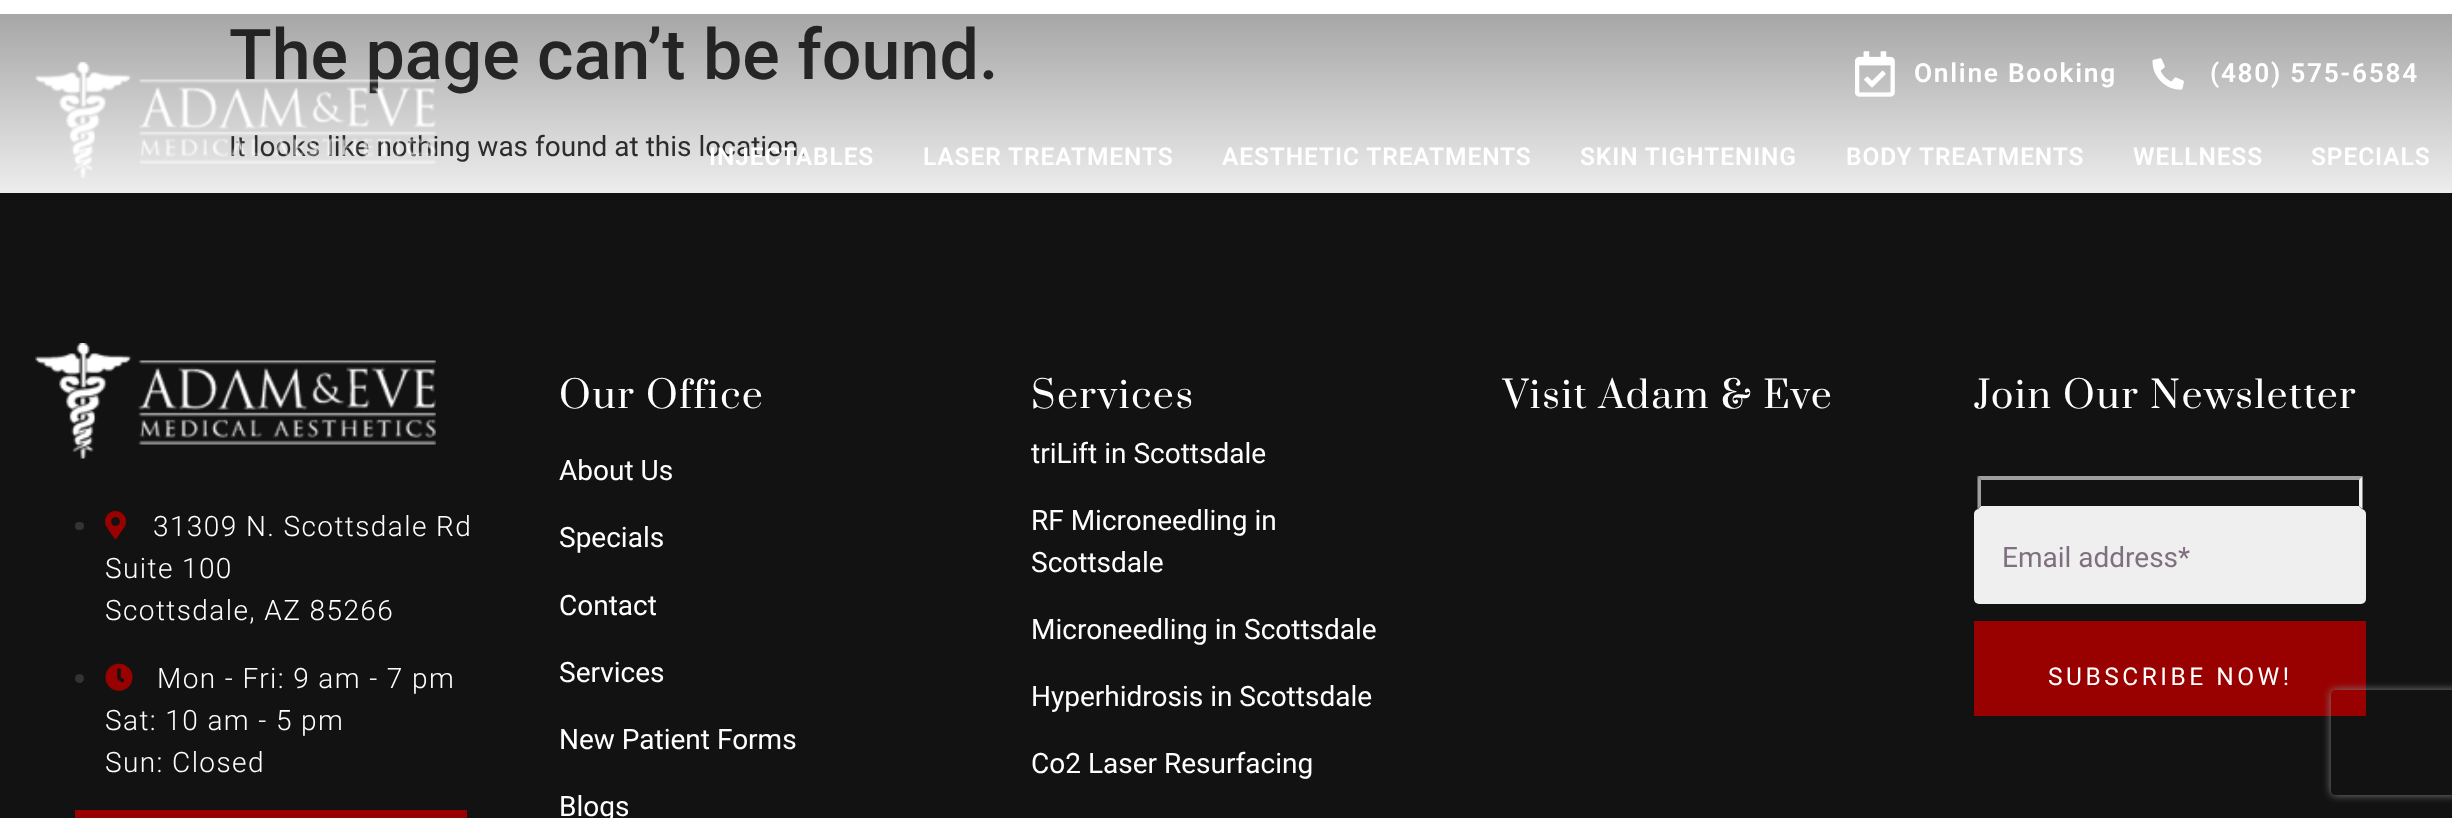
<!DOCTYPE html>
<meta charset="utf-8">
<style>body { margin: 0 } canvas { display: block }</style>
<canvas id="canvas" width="2452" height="818"></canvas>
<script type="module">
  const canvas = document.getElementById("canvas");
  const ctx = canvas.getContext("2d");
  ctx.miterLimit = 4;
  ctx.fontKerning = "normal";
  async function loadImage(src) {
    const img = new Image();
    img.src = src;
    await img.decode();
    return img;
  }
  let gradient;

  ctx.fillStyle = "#ffffff";
  ctx.fillRect(0, 0, 2452, 818);
  ctx.font = "500 70px Roboto";
  ctx.fillStyle = "#333333";
  ctx.fillText("The page can’t be found.", 229, 79);
  ctx.font = "28px Roboto";
  ctx.fillText("It looks like nothing was found at this location.", 229, 156);
  gradient = ctx.createLinearGradient(1227, 14, 1227, 238);
  gradient.addColorStop(0, "rgba(0, 0, 0, 0.35)");
  gradient.addColorStop(1, "rgba(0, 0, 0, 0)");
  ctx.fillStyle = gradient;
  ctx.fillRect(0, 14, 2452, 179);
  ctx.drawImage(await loadImage("img1.png"), 35, 61, 401, 117);
  ctx.drawImage(await loadImage("img2.png"), 1855, 51, 40, 46);
  ctx.letterSpacing = "1.75px";
  ctx.font = "600 26.25px Roboto";
  ctx.fillStyle = "#ffffff";
  ctx.fillText("Online Booking", 1914, 82);
  ctx.drawImage(await loadImage("img3.png"), 2152, 58, 32, 32);
  ctx.fillText("(480) 575-6584", 2210, 82);
  ctx.letterSpacing = "0.9px";
  ctx.font = "600 24.5px Roboto";
  ctx.fillText("INJECTABLES", 709, 165);
  ctx.fillText("LASER TREATMENTS", 923, 165);
  ctx.fillText("AESTHETIC TREATMENTS", 1222, 165);
  ctx.fillText("SKIN TIGHTENING", 1580, 165);
  ctx.fillText("BODY TREATMENTS", 1846, 165);
  ctx.fillText("WELLNESS", 2133, 165);
  ctx.fillText("SPECIALS", 2311, 165);
  ctx.fillStyle = "#121212";
  ctx.fillRect(0, 193, 2452, 625);
  ctx.drawImage(await loadImage("img4.png"), 35, 343, 401, 116);
  ctx.fillStyle = "#333333";
  ctx.beginPath();
  ctx.roundRect(75, 522, 9, 8, 4);
  ctx.fill();
  ctx.drawImage(await loadImage("img5.png"), 105, 511, 21, 28);
  ctx.letterSpacing = "1.4px";
  ctx.font = "300 28px Roboto";
  ctx.fillStyle = "#ffffff";
  ctx.fillText("31309 N. Scottsdale Rd", 153, 536);
  ctx.fillText("Suite 100", 105, 578);
  ctx.fillText("Scottsdale, AZ 85266", 105, 620);
  ctx.fillStyle = "#333333";
  ctx.beginPath();
  ctx.arc(79.5, 678.5, 4.5, 0, Math.PI * 2);
  ctx.fill();
  ctx.drawImage(await loadImage("img6.png"), 105, 663, 28, 28);
  ctx.fillStyle = "#ffffff";
  ctx.fillText("Mon - Fri: 9 am - 7 pm", 157, 688);
  ctx.fillText("Sat: 10 am - 5 pm", 105, 730);
  ctx.fillText("Sun: Closed", 105, 772);
  ctx.fillStyle = "#990000";
  ctx.fillRect(75, 810, 392, 8);
  ctx.letterSpacing = "1.75px";
  ctx.font = "36.75px Prata";
  ctx.fillStyle = "#ffffff";
  ctx.fillText("Our Office", 559, 408);
  ctx.letterSpacing = "0px";
  ctx.font = "28px Roboto";
  ctx.fillText("About Us", 559, 480);
  ctx.fillText("Specials", 559, 547);
  ctx.fillText("Contact", 559, 615);
  ctx.fillText("Services", 559, 682);
  ctx.fillText("New Patient Forms", 559, 749);
  ctx.fillText("Blogs", 559, 816);
  ctx.letterSpacing = "1.75px";
  ctx.font = "36.75px Prata";
  ctx.fillText("Services", 1031, 408);
  ctx.letterSpacing = "0px";
  ctx.font = "28px Roboto";
  ctx.fillText("triLift in Scottsdale", 1031, 463);
  ctx.fillText("RF Microneedling in", 1031, 530);
  ctx.fillText("Scottsdale", 1031, 572);
  ctx.fillText("Microneedling in Scottsdale", 1031, 639);
  ctx.fillText("Hyperhidrosis in Scottsdale", 1031, 706);
  ctx.fillText("Co2 Laser Resurfacing", 1031, 773);
  ctx.letterSpacing = "1.75px";
  ctx.font = "36.75px Prata";
  ctx.fillText("Visit Adam & Eve", 1503, 408);
  ctx.fillText("Join Our Newsletter", 1974, 408);
  ctx.fillStyle = "#9f9f9f";
  ctx.beginPath();
  ctx.moveTo(1978, 476);
  ctx.lineTo(2362, 476);
  ctx.lineTo(2359, 480);
  ctx.lineTo(1981, 480);
  ctx.closePath();
  ctx.fill();
  ctx.fillStyle = "#efefef";
  ctx.beginPath();
  ctx.moveTo(2362.5, 476);
  ctx.lineTo(2362.5, 509);
  ctx.lineTo(2359, 506);
  ctx.lineTo(2359, 479.5);
  ctx.closePath();
  ctx.fill();
  ctx.beginPath();
  ctx.moveTo(2362, 509);
  ctx.lineTo(1978, 509);
  ctx.lineTo(1981, 506);
  ctx.lineTo(2359, 506);
  ctx.closePath();
  ctx.fill();
  ctx.fillStyle = "#9f9f9f";
  ctx.beginPath();
  ctx.moveTo(1977.5, 509);
  ctx.lineTo(1977.5, 476);
  ctx.lineTo(1981, 479.5);
  ctx.lineTo(1981, 506);
  ctx.closePath();
  ctx.fill();
  ctx.fillStyle = "#efefef";
  ctx.beginPath();
  ctx.roundRect(1974, 509, 392, 95, 5);
  ctx.fill();
  ctx.letterSpacing = "0px";
  ctx.font = "28px Roboto";
  ctx.fillStyle = "#7f6f7f";
  ctx.fillText("Email address*", 2002, 567);
  ctx.fillStyle = "#990000";
  ctx.fillRect(1974, 621, 392, 95);
  ctx.letterSpacing = "3.5px";
  ctx.font = "24.5px Roboto";
  ctx.fillStyle = "#ffffff";
  ctx.fillText("SUBSCRIBE NOW!", 2048, 685);
  ctx.save();
  ctx.beginPath();
  ctx.moveTo(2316, 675);
  ctx.lineTo(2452, 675);
  ctx.lineTo(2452, 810);
  ctx.lineTo(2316, 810);
  ctx.closePath();
  ctx.moveTo(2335, 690);
  ctx.lineTo(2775, 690);
  ctx.bezierCurveTo(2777, 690, 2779, 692, 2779, 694);
  ctx.lineTo(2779, 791);
  ctx.bezierCurveTo(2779, 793, 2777, 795, 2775, 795);
  ctx.lineTo(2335, 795);
  ctx.bezierCurveTo(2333, 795, 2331, 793, 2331, 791);
  ctx.lineTo(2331, 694);
  ctx.bezierCurveTo(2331, 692, 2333, 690, 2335, 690);
  ctx.closePath();
  ctx.clip("evenodd");
  ctx.fillStyle = "#808080";
  ctx.filter = "blur(4.5px)";
  ctx.beginPath();
  ctx.roundRect(2331, 690, 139, 105, 4);
  ctx.fill();
  ctx.filter = "none";
  ctx.restore();
</script>
